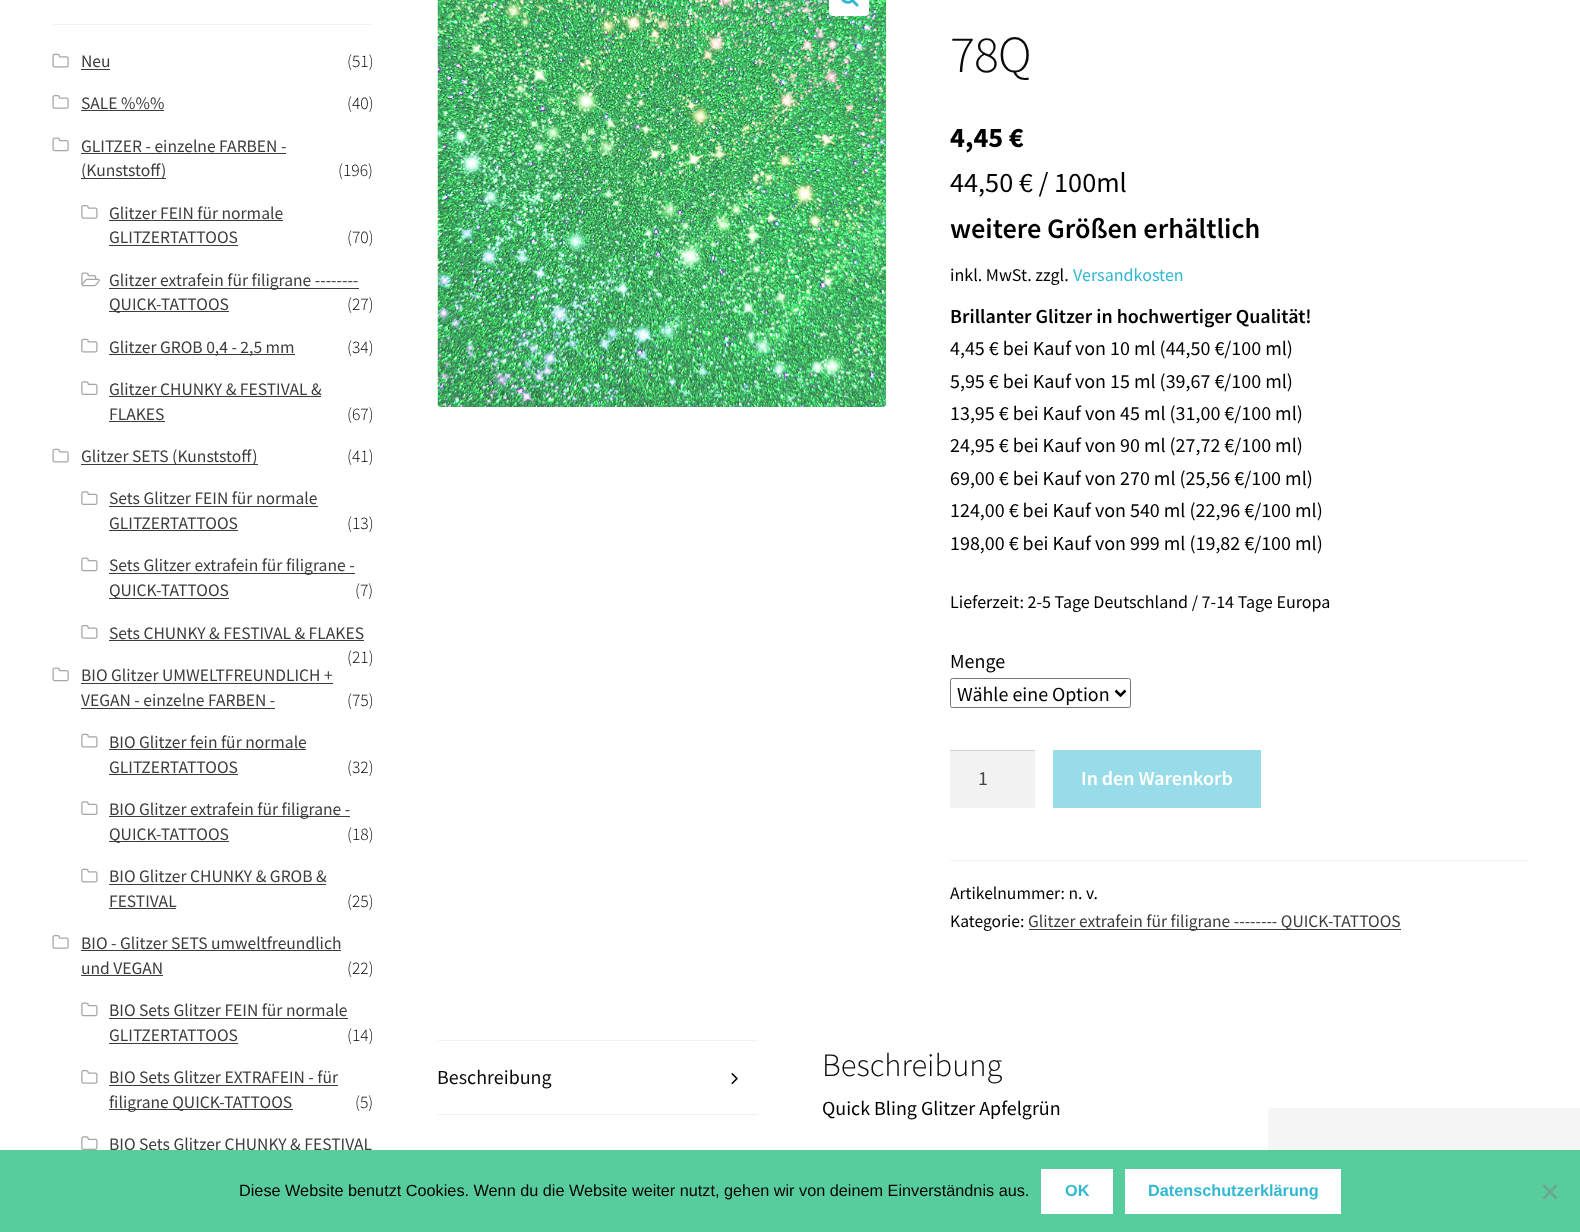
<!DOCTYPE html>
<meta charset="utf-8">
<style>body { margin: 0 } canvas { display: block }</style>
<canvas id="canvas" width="1580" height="1232"></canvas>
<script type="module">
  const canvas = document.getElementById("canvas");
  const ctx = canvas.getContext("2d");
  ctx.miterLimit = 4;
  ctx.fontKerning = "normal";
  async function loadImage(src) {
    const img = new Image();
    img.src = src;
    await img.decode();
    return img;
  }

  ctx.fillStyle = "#ffffff";
  ctx.fillRect(0, 0, 1580, 1232);
  ctx.fillStyle = "#f2f2f2";
  ctx.fillRect(53, 24, 320, 1);
  ctx.drawImage(await loadImage("img1.png"), 52, 53, 17, 15);
  ctx.font = "17.5px Source Sans Pro";
  ctx.fillStyle = "#3c3c3c";
  ctx.fillText("Neu", 81, 67);
  ctx.fillRect(81, 69, 29, 1);
  ctx.font = "300 17.5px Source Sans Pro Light";
  ctx.fillStyle = "#000000";
  ctx.fillText("(51)", 347, 67);
  ctx.drawImage(await loadImage("img2.png"), 52, 95, 17, 14);
  ctx.font = "17.5px Source Sans Pro";
  ctx.fillStyle = "#3c3c3c";
  ctx.fillText("SALE %%%", 81, 109);
  ctx.fillRect(81, 110, 83, 1);
  ctx.font = "300 17.5px Source Sans Pro Light";
  ctx.fillStyle = "#000000";
  ctx.fillText("(40)", 347, 109);
  ctx.drawImage(await loadImage("img3.png"), 52, 137, 17, 15);
  ctx.font = "17.5px Source Sans Pro";
  ctx.fillStyle = "#3c3c3c";
  ctx.fillText("GLITZER - einzelne FARBEN -", 81, 152);
  ctx.fillRect(81, 153, 205, 1);
  ctx.fillRect(81, 178, 85, 1);
  ctx.fillText("(Kunststoff)", 81, 176);
  ctx.font = "300 17.5px Source Sans Pro Light";
  ctx.fillStyle = "#000000";
  ctx.fillText("(196)", 338, 176);
  ctx.drawImage(await loadImage("img4.png"), 81, 205, 17, 14);
  ctx.font = "17.5px Source Sans Pro";
  ctx.fillStyle = "#3c3c3c";
  ctx.fillText("Glitzer FEIN für normale", 109, 219);
  ctx.fillRect(109, 220, 174, 1);
  ctx.fillText("GLITZERTATTOOS", 109, 243);
  ctx.fillRect(109, 245, 129, 1);
  ctx.font = "300 17.5px Source Sans Pro Light";
  ctx.fillStyle = "#000000";
  ctx.fillText("(70)", 347, 243);
  ctx.drawImage(await loadImage("img5.png"), 81, 272, 19, 15);
  ctx.fillStyle = "#3c3c3c";
  ctx.fillRect(109, 288, 250, 1);
  ctx.font = "17.5px Source Sans Pro";
  ctx.fillText("Glitzer extrafein für filigrane --------", 109, 286);
  ctx.fillRect(109, 311, 120, 1);
  ctx.fillText("QUICK-TATTOOS", 109, 310);
  ctx.font = "300 17.5px Source Sans Pro Light";
  ctx.fillStyle = "#000000";
  ctx.fillText("(27)", 347, 310);
  ctx.drawImage(await loadImage("img6.png"), 81, 338, 17, 15);
  ctx.fillStyle = "#3c3c3c";
  ctx.fillRect(109, 354, 186, 1);
  ctx.font = "17.5px Source Sans Pro";
  ctx.fillText("Glitzer GROB 0,4 - 2,5 mm", 109, 353);
  ctx.font = "300 17.5px Source Sans Pro Light";
  ctx.fillStyle = "#000000";
  ctx.fillText("(34)", 347, 353);
  ctx.drawImage(await loadImage("img7.png"), 81, 381, 17, 14);
  ctx.font = "17.5px Source Sans Pro";
  ctx.fillStyle = "#3c3c3c";
  ctx.fillText("Glitzer CHUNKY & FESTIVAL &", 109, 395);
  ctx.fillRect(109, 396, 212, 1);
  ctx.fillText("FLAKES", 109, 420);
  ctx.fillRect(109, 421, 56, 1);
  ctx.font = "300 17.5px Source Sans Pro Light";
  ctx.fillStyle = "#000000";
  ctx.fillText("(67)", 347, 420);
  ctx.drawImage(await loadImage("img1.png"), 52, 448, 17, 15);
  ctx.fillStyle = "#3c3c3c";
  ctx.fillRect(81, 464, 177, 1);
  ctx.font = "17.5px Source Sans Pro";
  ctx.fillText("Glitzer SETS (Kunststoff)", 81, 462);
  ctx.font = "300 17.5px Source Sans Pro Light";
  ctx.fillStyle = "#000000";
  ctx.fillText("(41)", 347, 462);
  ctx.drawImage(await loadImage("img7.png"), 81, 491, 17, 14);
  ctx.font = "17.5px Source Sans Pro";
  ctx.fillStyle = "#3c3c3c";
  ctx.fillText("Sets Glitzer FEIN für normale", 109, 504);
  ctx.fillRect(109, 506, 209, 1);
  ctx.fillText("GLITZERTATTOOS", 109, 529);
  ctx.fillRect(109, 530, 129, 1);
  ctx.font = "300 17.5px Source Sans Pro Light";
  ctx.fillStyle = "#000000";
  ctx.fillText("(13)", 347, 529);
  ctx.drawImage(await loadImage("img8.png"), 81, 557, 17, 15);
  ctx.fillStyle = "#3c3c3c";
  ctx.fillRect(109, 573, 246, 1);
  ctx.font = "17.5px Source Sans Pro";
  ctx.fillText("Sets Glitzer extrafein für filigrane -", 109, 571);
  ctx.fillRect(109, 598, 120, 1);
  ctx.fillText("QUICK-TATTOOS", 109, 596);
  ctx.font = "300 17.5px Source Sans Pro Light";
  ctx.fillStyle = "#000000";
  ctx.fillText("(7)", 355, 596);
  ctx.drawImage(await loadImage("img4.png"), 81, 625, 17, 14);
  ctx.font = "17.5px Source Sans Pro";
  ctx.fillStyle = "#3c3c3c";
  ctx.fillText("Sets CHUNKY & FESTIVAL & FLAKES", 109, 639);
  ctx.fillRect(109, 640, 255, 1);
  ctx.font = "300 17.5px Source Sans Pro Light";
  ctx.fillStyle = "#000000";
  ctx.fillText("(21)", 347, 663);
  ctx.drawImage(await loadImage("img3.png"), 52, 667, 17, 15);
  ctx.font = "17.5px Source Sans Pro";
  ctx.fillStyle = "#3c3c3c";
  ctx.fillText("BIO Glitzer UMWELTFREUNDLICH +", 81, 681);
  ctx.fillRect(81, 683, 252, 1);
  ctx.fillText("VEGAN - einzelne FARBEN -", 81, 706);
  ctx.fillRect(81, 708, 194, 1);
  ctx.font = "300 17.5px Source Sans Pro Light";
  ctx.fillStyle = "#000000";
  ctx.fillText("(75)", 347, 706);
  ctx.drawImage(await loadImage("img6.png"), 81, 733, 17, 15);
  ctx.font = "17.5px Source Sans Pro";
  ctx.fillStyle = "#3c3c3c";
  ctx.fillText("BIO Glitzer fein für normale", 109, 748);
  ctx.fillRect(109, 749, 197, 1);
  ctx.fillText("GLITZERTATTOOS", 109, 773);
  ctx.fillRect(109, 774, 129, 1);
  ctx.font = "300 17.5px Source Sans Pro Light";
  ctx.fillStyle = "#000000";
  ctx.fillText("(32)", 347, 773);
  ctx.drawImage(await loadImage("img7.png"), 81, 801, 17, 14);
  ctx.fillStyle = "#3c3c3c";
  ctx.fillRect(109, 816, 241, 1);
  ctx.font = "17.5px Source Sans Pro";
  ctx.fillText("BIO Glitzer extrafein für filigrane -", 109, 815);
  ctx.fillRect(109, 841, 120, 1);
  ctx.fillText("QUICK-TATTOOS", 109, 840);
  ctx.font = "300 17.5px Source Sans Pro Light";
  ctx.fillStyle = "#000000";
  ctx.fillText("(18)", 347, 840);
  ctx.drawImage(await loadImage("img6.png"), 81, 868, 17, 15);
  ctx.font = "17.5px Source Sans Pro";
  ctx.fillStyle = "#3c3c3c";
  ctx.fillText("BIO Glitzer CHUNKY & GROB &", 109, 882);
  ctx.fillRect(109, 884, 217, 1);
  ctx.fillText("FESTIVAL", 109, 907);
  ctx.fillRect(109, 908, 67, 1);
  ctx.font = "300 17.5px Source Sans Pro Light";
  ctx.fillStyle = "#000000";
  ctx.fillText("(25)", 347, 907);
  ctx.drawImage(await loadImage("img2.png"), 52, 935, 17, 14);
  ctx.font = "17.5px Source Sans Pro";
  ctx.fillStyle = "#3c3c3c";
  ctx.fillText("BIO - Glitzer SETS umweltfreundlich", 81, 949);
  ctx.fillRect(81, 950, 260, 1);
  ctx.fillText("und VEGAN", 81, 974);
  ctx.fillRect(81, 975, 82, 1);
  ctx.font = "300 17.5px Source Sans Pro Light";
  ctx.fillStyle = "#000000";
  ctx.fillText("(22)", 347, 974);
  ctx.drawImage(await loadImage("img8.png"), 81, 1002, 17, 15);
  ctx.font = "17.5px Source Sans Pro";
  ctx.fillStyle = "#3c3c3c";
  ctx.fillText("BIO Sets Glitzer FEIN für normale", 109, 1016);
  ctx.fillRect(109, 1018, 239, 1);
  ctx.fillText("GLITZERTATTOOS", 109, 1041);
  ctx.fillRect(109, 1043, 129, 1);
  ctx.font = "300 17.5px Source Sans Pro Light";
  ctx.fillStyle = "#000000";
  ctx.fillText("(14)", 347, 1041);
  ctx.drawImage(await loadImage("img4.png"), 81, 1070, 17, 14);
  ctx.font = "17.5px Source Sans Pro";
  ctx.fillStyle = "#3c3c3c";
  ctx.fillText("BIO Sets Glitzer EXTRAFEIN - für", 109, 1083);
  ctx.fillRect(109, 1085, 229, 1);
  ctx.fillRect(109, 1109, 184, 1);
  ctx.fillText("filigrane QUICK-TATTOOS", 109, 1108);
  ctx.font = "300 17.5px Source Sans Pro Light";
  ctx.fillStyle = "#000000";
  ctx.fillText("(5)", 355, 1108);
  ctx.drawImage(await loadImage("img7.png"), 81, 1136, 17, 14);
  ctx.font = "17.5px Source Sans Pro";
  ctx.fillStyle = "#3c3c3c";
  ctx.fillText("BIO Sets Glitzer CHUNKY & FESTIVAL", 109, 1150);
  ctx.drawImage(await loadImage("img10.png"), 437, 0, 450, 407);
  ctx.fillStyle = "#ffffff";
  ctx.beginPath();
  ctx.roundRect(829, -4, 40, 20, 4);
  ctx.fill();
  ctx.drawImage(await loadImage("img9.png"), 841, 0, 18, 7);
  ctx.letterSpacing = "-1px";
  ctx.font = "300 52px Source Sans Pro Light";
  ctx.fillStyle = "#0a0a0a";
  ctx.fillText("78Q", 950, 72);
  ctx.letterSpacing = "0px";
  ctx.font = "bold 28.25px Source Sans Pro";
  ctx.fillStyle = "#000000";
  ctx.fillText("4,45 €", 950, 147);
  ctx.font = "28.25px Source Sans Pro";
  ctx.fillText("44,50 € / 100ml", 950, 192);
  ctx.font = "600 28.25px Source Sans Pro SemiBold";
  ctx.fillText("weitere Größen erhältlich", 950, 238);
  ctx.font = "18px Source Sans Pro";
  ctx.fillText("inkl. MwSt. zzgl.", 950, 281);
  ctx.fillStyle = "#32b8d3";
  ctx.fillText("Versandkosten", 1073, 281);
  ctx.font = "600 20px Source Sans Pro SemiBold";
  ctx.fillStyle = "#000000";
  ctx.fillText("Brillanter Glitzer in hochwertiger Qualität!", 950, 323);
  ctx.font = "20px Source Sans Pro";
  ctx.fillText("4,45 € bei Kauf von 10 ml (44,50 €/100 ml)", 950, 355);
  ctx.fillText("5,95 € bei Kauf von 15 ml (39,67 €/100 ml)", 950, 388);
  ctx.fillText("13,95 € bei Kauf von 45 ml (31,00 €/100 ml)", 950, 420);
  ctx.fillText("24,95 € bei Kauf von 90 ml (27,72 €/100 ml)", 950, 452);
  ctx.fillText("69,00 € bei Kauf von 270 ml (25,56 €/100 ml)", 950, 485);
  ctx.fillText("124,00 € bei Kauf von 540 ml (22,96 €/100 ml)", 950, 517);
  ctx.fillText("198,00 € bei Kauf von 999 ml (19,82 €/100 ml)", 950, 550);
  ctx.font = "18px Source Sans Pro";
  ctx.fillText("Lieferzeit: 2-5 Tage Deutschland / 7-14 Tage Europa", 950, 608);
  ctx.font = "20px Source Sans Pro";
  ctx.fillText("Menge", 950, 668);
  ctx.beginPath();
  ctx.roundRect(950.5, 678.5, 180, 29, 2);
  ctx.strokeStyle = "#767676";
  ctx.stroke();
  ctx.beginPath();
  ctx.moveTo(1115.5, 690.5);
  ctx.lineTo(1120.5, 695.5);
  ctx.lineTo(1125.5, 690.5);
  ctx.strokeStyle = "#000000";
  ctx.lineWidth = 2.5;
  ctx.stroke();
  ctx.fillText("Wähle eine Option", 957, 701);
  ctx.fillStyle = "#f2f2f2";
  ctx.fillRect(950, 751, 85, 57);
  ctx.fillStyle = "#d4d4d4";
  ctx.fillRect(950, 750, 85, 1);
  ctx.fillStyle = "#43454b";
  ctx.fillText("1", 978, 785);
  ctx.fillStyle = "#99dce9";
  ctx.fillRect(1053, 750, 208, 58);
  ctx.font = "600 20px Source Sans Pro SemiBold";
  ctx.fillStyle = "#ffffff";
  ctx.fillText("In den Warenkorb", 1081, 785);
  ctx.fillStyle = "#f2f2f2";
  ctx.fillRect(950, 860, 578, 1);
  ctx.font = "17.5px Source Sans Pro";
  ctx.fillStyle = "#000000";
  ctx.fillText("Artikelnummer: n. v.", 950, 899);
  ctx.fillText("Kategorie:", 950, 927);
  ctx.fillStyle = "#3c3c3c";
  ctx.fillRect(1029, 929, 372, 1);
  ctx.fillText("Glitzer extrafein für filigrane -------- QUICK-TATTOOS", 1028, 927);
  ctx.fillStyle = "#f2f2f2";
  ctx.fillRect(438, 1040, 320, 1);
  ctx.fillRect(438, 1114, 320, 1);
  ctx.font = "20px Source Sans Pro";
  ctx.fillStyle = "#0a0a0a";
  ctx.fillText("Beschreibung", 437, 1084);
  ctx.drawImage(await loadImage("img11.png"), 731, 1073, 7, 12);
  ctx.font = "300 32.5px Source Sans Pro Light";
  ctx.fillText("Beschreibung", 822, 1076);
  ctx.font = "20px Source Sans Pro";
  ctx.fillStyle = "#000000";
  ctx.fillText("Quick Bling Glitzer Apfelgrün", 822, 1115);
  ctx.fillStyle = "#f5f5f5";
  ctx.beginPath();
  ctx.moveTo(1273, 1108);
  ctx.lineTo(1580, 1108);
  ctx.lineTo(1580, 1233);
  ctx.lineTo(1268, 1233);
  ctx.lineTo(1268, 1113);
  ctx.bezierCurveTo(1268, 1110, 1270, 1108, 1273, 1108);
  ctx.closePath();
  ctx.fill();
  ctx.fillStyle = "#57cc9d";
  ctx.fillRect(0, 1150, 1580, 82);
  ctx.font = "16.25px Liberation Sans";
  ctx.fillStyle = "#000000";
  ctx.fillText("Diese Website benutzt Cookies. Wenn du die Website weiter nutzt, gehen wir von deinem Einverständnis aus.", 239, 1196);
  ctx.fillStyle = "#ffffff";
  ctx.fillRect(1041, 1169, 72, 45);
  ctx.font = "bold 16.25px Liberation Sans";
  ctx.fillStyle = "#32b8d3";
  ctx.fillText("OK", 1065, 1196);
  ctx.fillStyle = "#ffffff";
  ctx.fillRect(1125, 1169, 216, 45);
  ctx.fillStyle = "#32b8d3";
  ctx.fillText("Datenschutzerklärung", 1148, 1196);
  ctx.fillStyle = "#6ca68f";
  ctx.beginPath();
  ctx.moveTo(1555.5, 1184.5);
  ctx.lineTo(1557.5, 1186);
  ctx.lineTo(1544.5, 1199.5);
  ctx.lineTo(1542.5, 1197.5);
  ctx.closePath();
  ctx.fill();
  ctx.beginPath();
  ctx.moveTo(1542.5, 1186);
  ctx.lineTo(1544.5, 1184.5);
  ctx.lineTo(1557.5, 1197.5);
  ctx.lineTo(1555.5, 1199.5);
  ctx.closePath();
  ctx.fill();
</script>
